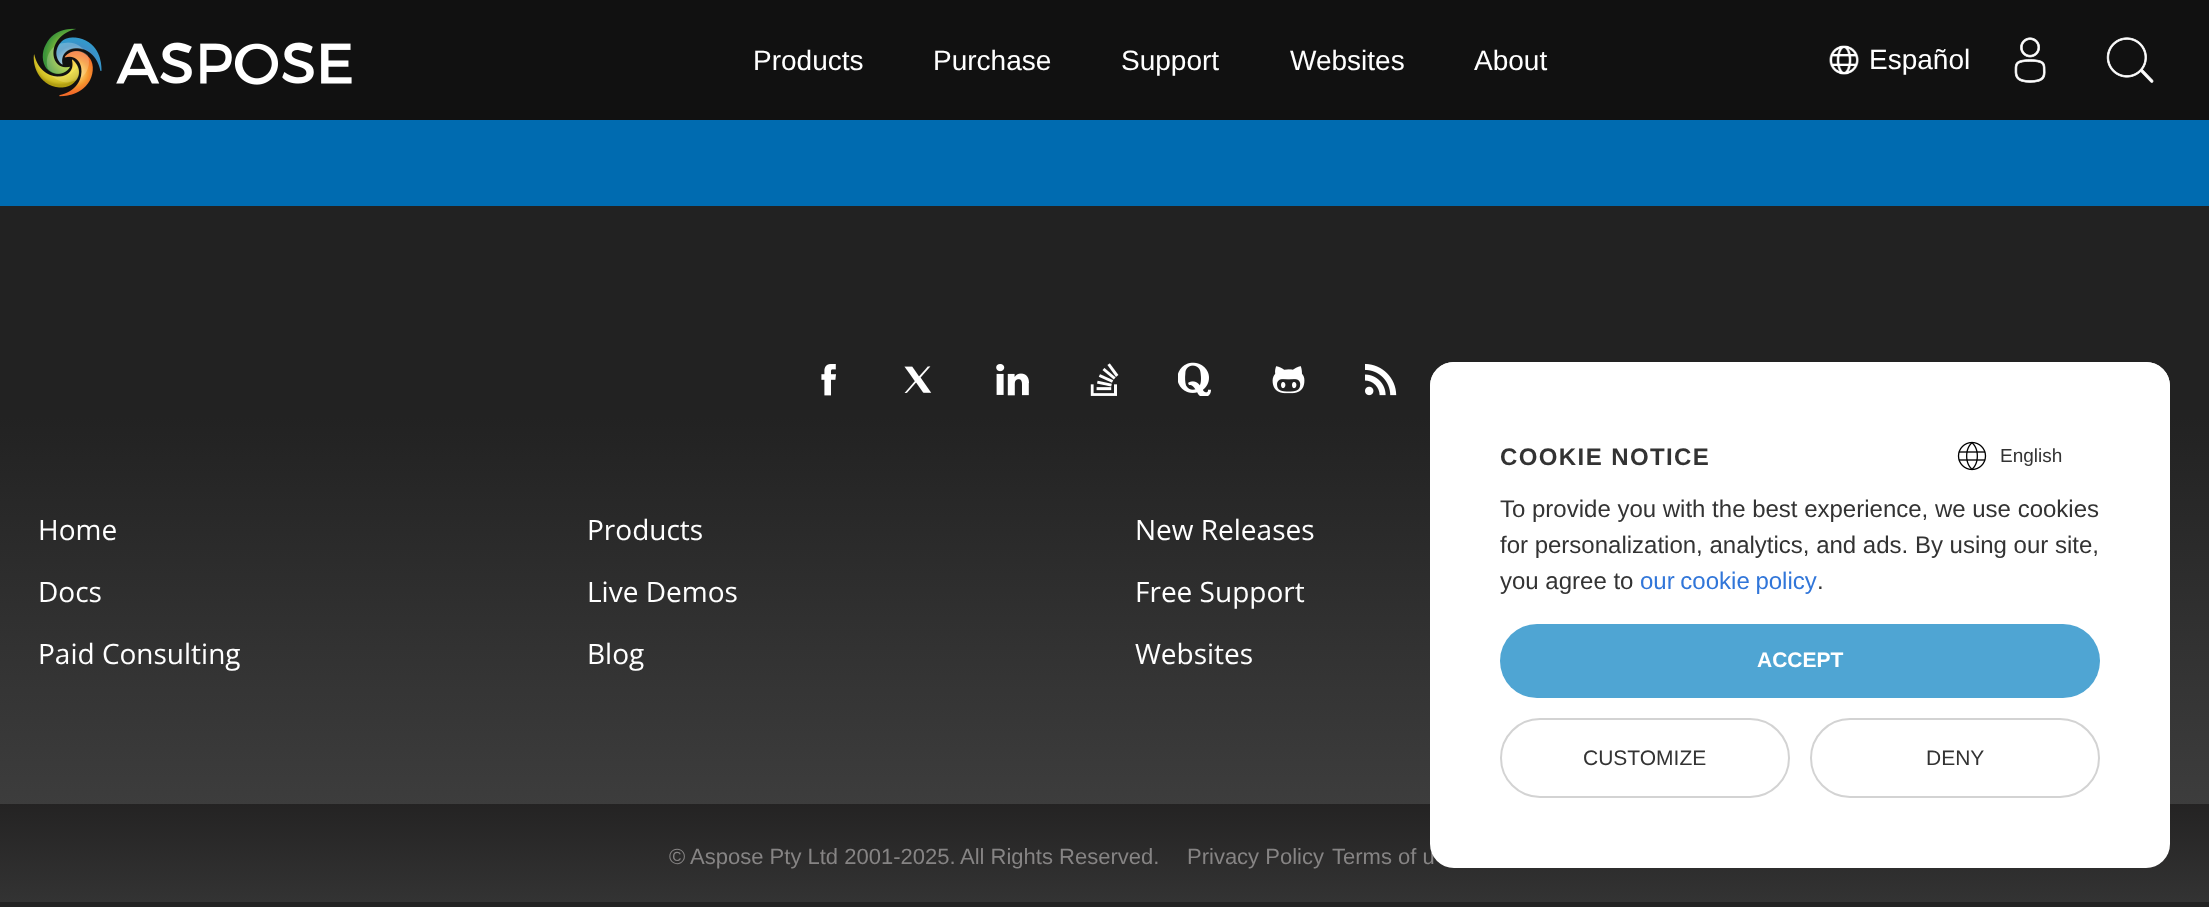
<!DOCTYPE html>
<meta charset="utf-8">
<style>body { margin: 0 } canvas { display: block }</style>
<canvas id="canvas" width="2209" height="907"></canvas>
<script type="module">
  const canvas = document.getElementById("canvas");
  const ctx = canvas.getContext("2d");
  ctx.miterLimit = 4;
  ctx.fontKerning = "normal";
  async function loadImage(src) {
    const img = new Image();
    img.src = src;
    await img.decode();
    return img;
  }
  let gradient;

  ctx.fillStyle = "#006bb0";
  ctx.fillRect(0, 0, 2209, 907);
  ctx.fillStyle = "#111111";
  ctx.fillRect(0, 0, 2209, 120);
  ctx.drawImage(await loadImage("img1.png"), 33, 28, 319, 69);
  ctx.font = "28px Liberation Sans";
  ctx.fillStyle = "#ffffff";
  ctx.fillText("Products", 753, 70);
  ctx.fillText("Purchase", 933, 70);
  ctx.fillText("Support", 1121, 70);
  ctx.fillText("Websites", 1290, 70);
  ctx.fillText("About", 1474, 70);
  ctx.drawImage(await loadImage("img2.png"), 1829, 45, 30, 30);
  ctx.fillText("Español", 1869, 69);
  ctx.drawImage(await loadImage("img3.png"), 2014, 37, 32, 46);
  ctx.drawImage(await loadImage("img4.png"), 2106, 37, 48, 46);
  gradient = ctx.createLinearGradient(1105, 206, 1105, 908);
  gradient.addColorStop(0.3, "#222222");
  gradient.addColorStop(1, "#444444");
  ctx.fillStyle = gradient;
  ctx.fillRect(0, 206, 2209, 598);
  ctx.drawImage(await loadImage("img5.png"), 821, 364, 15, 32);
  ctx.drawImage(await loadImage("img6.png"), 904, 366, 28, 27);
  ctx.drawImage(await loadImage("img7.png"), 996, 364, 33, 32);
  ctx.drawImage(await loadImage("img8.png"), 1090, 363, 29, 33);
  ctx.drawImage(await loadImage("img9.png"), 1178, 362, 33, 34);
  ctx.drawImage(await loadImage("img10.png"), 1272, 366, 33, 28);
  ctx.drawImage(await loadImage("img11.png"), 1365, 363, 32, 33);
  ctx.font = "28px Open Sans";
  ctx.fillStyle = "#ffffff";
  ctx.fillText("Home", 38, 540);
  ctx.fillText("Products", 587, 540);
  ctx.fillText("New Releases", 1135, 540);
  ctx.fillText("Docs", 38, 602);
  ctx.fillText("Live Demos", 587, 602);
  ctx.fillText("Free Support", 1135, 602);
  ctx.fillText("Paid Consulting", 38, 664);
  ctx.fillText("Blog", 587, 664);
  ctx.fillText("Websites", 1135, 664);
  gradient = ctx.createLinearGradient(1105, 804, 1105, 902);
  gradient.addColorStop(0, "#242323");
  gradient.addColorStop(1, "#333333");
  ctx.fillStyle = gradient;
  ctx.fillRect(0, 804, 2209, 98);
  ctx.fillStyle = "#222222";
  ctx.fillRect(0, 902, 2209, 5);
  ctx.font = "22px Liberation Sans";
  ctx.fillStyle = "#868484";
  ctx.fillText("© Aspose Pty Ltd 2001-2025.", 669, 864);
  ctx.fillText("All Rights Reserved.", 960, 864);
  ctx.fillText("Privacy Policy", 1187, 864);
  ctx.fillText("Terms of u", 1332, 864);
  ctx.fillStyle = "#ffffff";
  ctx.beginPath();
  ctx.roundRect(1430, 362, 740, 506, 24);
  ctx.fill();
  ctx.beginPath();
  ctx.roundRect(1430, 362, 740, 120, [24, 24, 0, 0]);
  ctx.fill();
  ctx.letterSpacing = "1.4px";
  ctx.font = "bold 24px Liberation Sans";
  ctx.fillStyle = "#333333";
  ctx.fillText("COOKIE NOTICE", 1500, 465);
  ctx.drawImage(await loadImage("img12.png"), 1957, 441, 30, 30);
  ctx.letterSpacing = "0px";
  ctx.font = "19px Liberation Sans";
  ctx.fillText("English", 2000, 462);
  ctx.font = "24px Liberation Sans";
  ctx.fillText("To provide you with the best experience, we use cookies", 1500, 517);
  ctx.fillText("for personalization, analytics, and ads. By using our site,", 1500, 553);
  ctx.fillText("you agree to", 1500, 589);
  ctx.wordSpacing = "-1px";
  ctx.fillStyle = "#3176d9";
  ctx.fillText("our cookie policy", 1640, 589);
  ctx.wordSpacing = "0px";
  ctx.fillStyle = "#333333";
  ctx.fillText(".", 1817, 589);
  ctx.fillStyle = "#4fa5d3";
  ctx.beginPath();
  ctx.roundRect(1500, 624, 600, 74, 37);
  ctx.fill();
  ctx.font = "bold 21px Liberation Sans";
  ctx.fillStyle = "#ffffff";
  ctx.fillText("ACCEPT", 1757, 667);
  ctx.beginPath();
  ctx.roundRect(1501, 719, 288, 78, 39);
  ctx.strokeStyle = "#d3d3d3";
  ctx.lineWidth = 2;
  ctx.stroke();
  ctx.font = "21px Liberation Sans";
  ctx.fillStyle = "#333333";
  ctx.fillText("CUSTOMIZE", 1583, 765);
  ctx.beginPath();
  ctx.roundRect(1811, 719, 288, 78, 39);
  ctx.stroke();
  ctx.fillText("DENY", 1926, 765);
</script>
